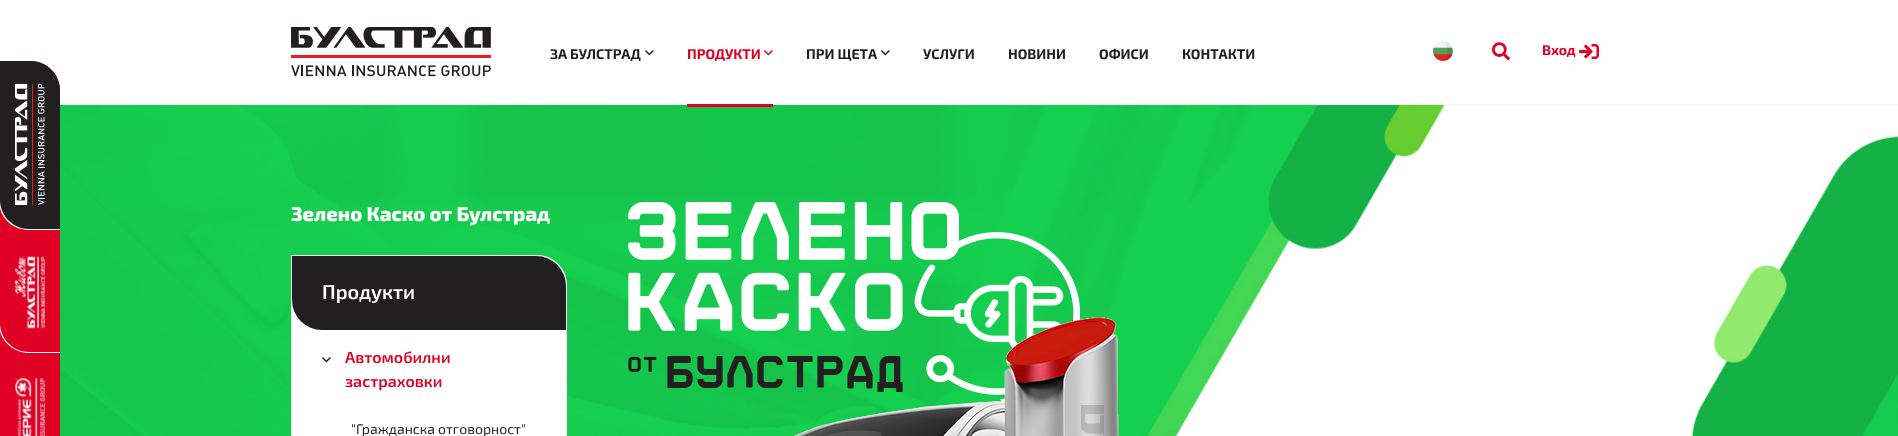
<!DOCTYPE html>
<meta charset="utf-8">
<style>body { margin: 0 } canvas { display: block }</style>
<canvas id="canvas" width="1898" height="436"></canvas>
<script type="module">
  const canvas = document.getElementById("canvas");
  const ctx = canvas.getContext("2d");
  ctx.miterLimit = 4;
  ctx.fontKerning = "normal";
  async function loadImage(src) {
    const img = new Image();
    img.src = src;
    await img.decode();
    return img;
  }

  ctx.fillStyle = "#ffffff";
  ctx.fillRect(0, 0, 1898, 436);
  ctx.fillStyle = "#f5f5f5";
  ctx.fillRect(60, 104, 1838, 1);
  ctx.drawImage(await loadImage("img1.png"), 291, 27, 200, 50);
  ctx.font = "bold 14px 'Exo 2'";
  ctx.fillStyle = "#231f20";
  ctx.fillText("ЗА БУЛСТРАД", 550, 59);
  ctx.drawImage(await loadImage("img2.png"), 645, 50, 9, 6);
  ctx.fillStyle = "#df0024";
  ctx.fillText("ПРОДУКТИ", 687, 59);
  ctx.drawImage(await loadImage("img3.png"), 764, 50, 9, 6);
  ctx.drawImage(await loadImage("img10.png"), 60, 105, 1838, 331);
  ctx.fillStyle = "#dc0021";
  ctx.fillRect(687, 104, 86, 3);
  ctx.fillStyle = "#231f20";
  ctx.fillText("ПРИ ЩЕТА", 806, 59);
  ctx.drawImage(await loadImage("img2.png"), 881, 50, 9, 6);
  ctx.fillText("УСЛУГИ", 923, 59);
  ctx.fillText("НОВИНИ", 1008, 59);
  ctx.fillText("ОФИСИ", 1099, 59);
  ctx.fillText("КОНТАКТИ", 1182, 59);
  ctx.drawImage(await loadImage("img4.png"), 1433, 41, 20, 20);
  ctx.drawImage(await loadImage("img5.png"), 1492, 42, 18, 19);
  ctx.fillStyle = "#df0024";
  ctx.fillText("Вход", 1542, 55);
  ctx.drawImage(await loadImage("img6.png"), 1579, 44, 20, 15);
  ctx.beginPath();
  ctx.moveTo(60, 91);
  ctx.lineTo(60, 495);
  ctx.lineTo(30, 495);
  ctx.bezierCurveTo(13, 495, 0, 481, 0, 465);
  ctx.lineTo(0, 61);
  ctx.lineTo(30, 61);
  ctx.bezierCurveTo(47, 61, 60, 74, 60, 91);
  ctx.closePath();
  ctx.fill();
  ctx.fillStyle = "#231f20";
  ctx.beginPath();
  ctx.moveTo(60, 91);
  ctx.bezierCurveTo(60, 74, 47, 61, 30, 61);
  ctx.lineTo(0, 61);
  ctx.lineTo(0, 200);
  ctx.bezierCurveTo(0, 217, 13, 230, 30, 230);
  ctx.lineTo(60, 230);
  ctx.closePath();
  ctx.fill();
  ctx.drawImage(await loadImage("img7.png"), 15, 83, 30, 122);
  ctx.fillStyle = "#ffffff";
  ctx.beginPath();
  ctx.moveTo(60, 230);
  ctx.lineTo(60, 229);
  ctx.lineTo(29, 229);
  ctx.bezierCurveTo(13, 229, 0, 216, 0, 200);
  ctx.lineTo(0, 208);
  ctx.bezierCurveTo(3, 221, 15, 230, 29, 230);
  ctx.closePath();
  ctx.fill();
  ctx.drawImage(await loadImage("img8.png"), 15, 256, 30, 73);
  ctx.beginPath();
  ctx.moveTo(60, 353);
  ctx.lineTo(60, 352);
  ctx.lineTo(29, 352);
  ctx.bezierCurveTo(13, 352, 0, 339, 0, 323);
  ctx.lineTo(0, 331);
  ctx.bezierCurveTo(3, 343, 15, 353, 29, 353);
  ctx.closePath();
  ctx.fill();
  ctx.drawImage(await loadImage("img9.png"), 15, 378, 30, 58);
  ctx.font = "800 20px 'Exo 2'";
  ctx.fillText("Зелено Каско от Булстрад", 291, 221);
  ctx.beginPath();
  ctx.moveTo(291.5, 255.5);
  ctx.lineTo(537, 255.5);
  ctx.bezierCurveTo(553.5, 255.5, 566.5, 268.5, 566.5, 285);
  ctx.lineTo(566.5, 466.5);
  ctx.lineTo(321, 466.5);
  ctx.bezierCurveTo(304.5, 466.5, 291.5, 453.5, 291.5, 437);
  ctx.closePath();
  ctx.fill();
  ctx.strokeStyle = "#f3f3f3";
  ctx.stroke();
  ctx.fillStyle = "#231f20";
  ctx.beginPath();
  ctx.roundRect(292, 256, 274, 74, [0, 30, 0, 30]);
  ctx.fill();
  ctx.font = "600 20px 'Exo 2'";
  ctx.fillStyle = "#ffffff";
  ctx.fillText("Продукти", 322, 299);
  ctx.drawImage(await loadImage("img2.png"), 322, 357, 9, 6);
  ctx.font = "600 16px 'Exo 2'";
  ctx.fillStyle = "#df0024";
  ctx.fillText("Автомобилни", 345, 363);
  ctx.fillText("застраховки", 345, 387);
  ctx.font = "14px 'Exo 2'";
  ctx.fillStyle = "#231f20";
  ctx.fillText("\"Гражданска oтговорност\"", 351, 434);
  ctx.drawImage(await loadImage("img11.png"), 628, 202, 452, 193);
  ctx.drawImage(await loadImage("img12.png"), 794, 317, 325, 119);
</script>
